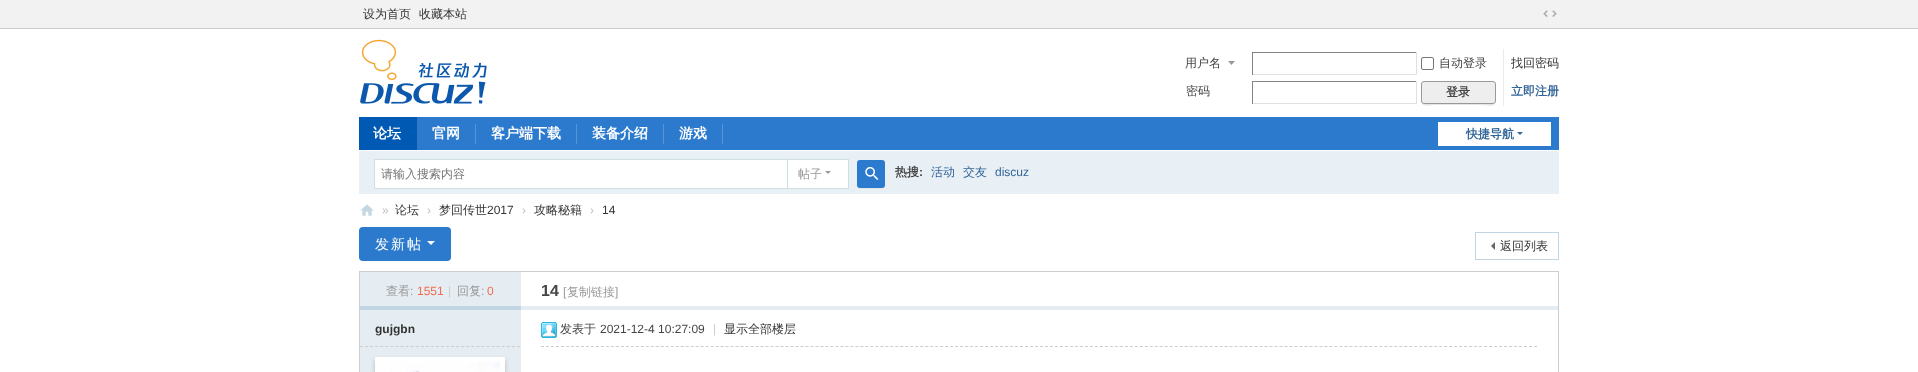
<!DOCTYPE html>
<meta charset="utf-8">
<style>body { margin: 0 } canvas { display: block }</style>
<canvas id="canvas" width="1918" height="372"></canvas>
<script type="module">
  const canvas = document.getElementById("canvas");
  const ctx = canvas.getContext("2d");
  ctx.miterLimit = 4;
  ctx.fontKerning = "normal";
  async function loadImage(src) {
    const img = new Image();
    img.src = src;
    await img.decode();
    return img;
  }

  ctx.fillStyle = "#ffffff";
  ctx.fillRect(0, 0, 1918, 372);
  ctx.fillStyle = "#f2f2f2";
  ctx.fillRect(0, 0, 1918, 28);
  ctx.fillStyle = "#cdcdcd";
  ctx.fillRect(0, 28, 1918, 1);
  ctx.font = "500 12px WenQuanYi Zen Hei";
  ctx.fillStyle = "#333333";
  ctx.fillText("设为首页", 363, 18);
  ctx.fillText("收藏本站", 419, 18);
  ctx.drawImage(await loadImage("img1.png"), 1543, 10, 14, 7);
  ctx.drawImage(await loadImage("img2.png"), 360, 39, 127, 65);
  ctx.fillStyle = "#999999";
  ctx.beginPath();
  ctx.moveTo(1235, 61);
  ctx.lineTo(1228, 61);
  ctx.lineTo(1231.5, 65);
  ctx.closePath();
  ctx.fill();
  ctx.fillStyle = "#444444";
  ctx.fillText("用户名", 1185, 67);
  ctx.fillStyle = "#848484";
  ctx.fillRect(1252, 52, 165, 1);
  ctx.fillStyle = "#e0e0e0";
  ctx.fillRect(1416, 52, 1, 23);
  ctx.fillRect(1252, 74, 165, 1);
  ctx.fillStyle = "#848484";
  ctx.fillRect(1252, 52, 1, 23);
  ctx.beginPath();
  ctx.roundRect(1421.5, 57.5, 12, 12, 1.5);
  ctx.strokeStyle = "#767676";
  ctx.stroke();
  ctx.fillStyle = "#444444";
  ctx.fillText("自动登录", 1439, 67);
  ctx.fillStyle = "#333333";
  ctx.fillText("找回密码", 1511, 67);
  ctx.fillStyle = "#444444";
  ctx.fillText("密码", 1186, 95);
  ctx.fillStyle = "#848484";
  ctx.fillRect(1252, 81, 165, 1);
  ctx.fillStyle = "#e0e0e0";
  ctx.fillRect(1416, 81, 1, 23);
  ctx.fillRect(1252, 103, 165, 1);
  ctx.fillStyle = "#848484";
  ctx.fillRect(1252, 81, 1, 23);
  ctx.fillStyle = "#e5edf2";
  ctx.fillRect(1503, 49, 1, 57);
  ctx.fillStyle = "#e5e5e5";
  ctx.beginPath();
  ctx.moveTo(1421, 101);
  ctx.bezierCurveTo(1421, 108, 1431, 105, 1436, 105);
  ctx.lineTo(1482, 105);
  ctx.bezierCurveTo(1486, 105, 1496, 108, 1496, 101);
  ctx.bezierCurveTo(1496, 103, 1495, 104, 1493, 104);
  ctx.lineTo(1424, 104);
  ctx.bezierCurveTo(1422, 104, 1421, 103, 1421, 101);
  ctx.closePath();
  ctx.fill();
  ctx.fillStyle = "#eeeeee";
  ctx.beginPath();
  ctx.roundRect(1421.5, 81.5, 74, 22, 2.5);
  ctx.fill();
  ctx.strokeStyle = "#999999";
  ctx.stroke();
  ctx.font = "bold 12px WenQuanYi Zen Hei";
  ctx.fillStyle = "#444444";
  ctx.fillText("登录", 1446, 96);
  ctx.fillStyle = "#336699";
  ctx.fillText("立即注册", 1511, 95);
  ctx.fillStyle = "#2b7acd";
  ctx.fillRect(417, 117, 1142, 33);
  ctx.fillStyle = "#005ab4";
  ctx.fillRect(359, 117, 58, 33);
  ctx.font = "bold 14px WenQuanYi Zen Hei";
  ctx.fillStyle = "#ffffff";
  ctx.fillText("论坛", 373, 138);
  ctx.fillStyle = "#5595d7";
  ctx.fillRect(475, 124, 1, 20);
  ctx.fillStyle = "#ffffff";
  ctx.fillText("官网", 432, 138);
  ctx.fillStyle = "#5595d7";
  ctx.fillRect(576, 124, 1, 20);
  ctx.fillStyle = "#ffffff";
  ctx.fillText("客户端下载", 491, 138);
  ctx.fillStyle = "#5595d7";
  ctx.fillRect(663, 124, 1, 20);
  ctx.fillStyle = "#ffffff";
  ctx.fillText("装备介绍", 592, 138);
  ctx.fillStyle = "#5595d7";
  ctx.fillRect(722, 124, 1, 20);
  ctx.fillStyle = "#ffffff";
  ctx.fillText("游戏", 679, 138);
  ctx.fillRect(1438, 122, 113, 24);
  ctx.font = "bold 12px WenQuanYi Zen Hei";
  ctx.fillStyle = "#336699";
  ctx.fillText("快捷导航", 1466, 138);
  ctx.beginPath();
  ctx.moveTo(1517, 132);
  ctx.lineTo(1523, 132);
  ctx.lineTo(1520, 135);
  ctx.closePath();
  ctx.fill();
  ctx.fillStyle = "#e8eff5";
  ctx.fillRect(359, 151, 1200, 43);
  ctx.fillStyle = "#cfdee3";
  ctx.fillRect(786, 159, 63, 1);
  ctx.fillRect(848, 159, 1, 30);
  ctx.fillRect(786, 188, 63, 1);
  ctx.fillStyle = "#ffffff";
  ctx.beginPath();
  ctx.rect(374.5, 159.5, 413, 29);
  ctx.fill();
  ctx.strokeStyle = "#cfdee3";
  ctx.stroke();
  ctx.font = "500 12px WenQuanYi Zen Hei";
  ctx.fillStyle = "#757575";
  ctx.fillText("请输入搜索内容", 381, 178);
  ctx.fillStyle = "#ffffff";
  ctx.fillRect(788, 160, 60, 28);
  ctx.fillStyle = "#999999";
  ctx.fillText("帖子", 798, 178);
  ctx.beginPath();
  ctx.moveTo(825, 171);
  ctx.lineTo(831, 171);
  ctx.lineTo(828, 174);
  ctx.closePath();
  ctx.fill();
  ctx.fillStyle = "#e5e5e5";
  ctx.beginPath();
  ctx.moveTo(857, 185);
  ctx.bezierCurveTo(857, 189.5, 860, 189, 863.5, 189);
  ctx.lineTo(878.5, 189);
  ctx.bezierCurveTo(882, 189, 885, 189.5, 885, 185);
  ctx.bezierCurveTo(885, 186.5, 883.5, 188, 882, 188);
  ctx.lineTo(860, 188);
  ctx.bezierCurveTo(858.5, 188, 857, 186.5, 857, 185);
  ctx.closePath();
  ctx.fill();
  ctx.fillStyle = "#2b7acd";
  ctx.beginPath();
  ctx.roundRect(857, 160, 28, 28, 3);
  ctx.fill();
  ctx.drawImage(await loadImage("img3.png"), 865, 167, 14, 13);
  ctx.font = "bold 12px WenQuanYi Zen Hei";
  ctx.fillStyle = "#444444";
  ctx.fillText("热搜", 895, 176);
  ctx.font = "bold 12px Liberation Sans";
  ctx.fillText(":", 919, 176);
  ctx.font = "500 12px WenQuanYi Zen Hei";
  ctx.fillStyle = "#336699";
  ctx.fillText("活动", 931, 176);
  ctx.fillText("交友", 963, 176);
  ctx.font = "12px Liberation Sans";
  ctx.fillText("discuz", 995, 176);
  ctx.drawImage(await loadImage("img4.png"), 360, 204, 14, 12);
  ctx.fillStyle = "#bdbdbd";
  ctx.fillText("»", 382, 214);
  ctx.font = "500 12px WenQuanYi Zen Hei";
  ctx.fillStyle = "#333333";
  ctx.fillText("论坛", 395, 214);
  ctx.font = "12px Liberation Sans";
  ctx.fillStyle = "#bdbdbd";
  ctx.fillText("›", 427, 214);
  ctx.font = "500 12px WenQuanYi Zen Hei";
  ctx.fillStyle = "#333333";
  ctx.fillText("梦回传世", 439, 214);
  ctx.font = "12px Liberation Sans";
  ctx.fillText("2017", 487, 214);
  ctx.fillStyle = "#bdbdbd";
  ctx.fillText("›", 522, 214);
  ctx.font = "500 12px WenQuanYi Zen Hei";
  ctx.fillStyle = "#333333";
  ctx.fillText("攻略秘籍", 534, 214);
  ctx.font = "12px Liberation Sans";
  ctx.fillStyle = "#bdbdbd";
  ctx.fillText("›", 590, 214);
  ctx.fillStyle = "#333333";
  ctx.fillText("14", 602, 214);
  ctx.fillStyle = "#2b7acd";
  ctx.beginPath();
  ctx.roundRect(359, 227, 92, 34, 4);
  ctx.fill();
  ctx.letterSpacing = "2px";
  ctx.font = "500 14px WenQuanYi Zen Hei";
  ctx.fillStyle = "#ffffff";
  ctx.fillText("发新帖", 375, 249);
  ctx.beginPath();
  ctx.moveTo(427, 241);
  ctx.lineTo(435, 241);
  ctx.lineTo(431, 245);
  ctx.closePath();
  ctx.fill();
  ctx.strokeStyle = "#c2d5e3";
  ctx.strokeRect(1475.5, 232.5, 83, 27);
  ctx.fillStyle = "#666666";
  ctx.beginPath();
  ctx.moveTo(1495, 242);
  ctx.lineTo(1495, 250);
  ctx.lineTo(1491, 246);
  ctx.closePath();
  ctx.fill();
  ctx.letterSpacing = "0px";
  ctx.font = "500 12px WenQuanYi Zen Hei";
  ctx.fillStyle = "#333333";
  ctx.fillText("返回列表", 1500, 250);
  ctx.strokeStyle = "#cdcdcd";
  ctx.strokeRect(359.5, 271.5, 1199, 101);
  ctx.fillStyle = "#e5edf2";
  ctx.fillRect(360, 272, 161, 34);
  ctx.fillStyle = "#999999";
  ctx.fillText("查看", 386, 295);
  ctx.font = "12px Liberation Sans";
  ctx.fillText(":", 410, 295);
  ctx.fillStyle = "#f26c4f";
  ctx.fillText("1551", 417, 295);
  ctx.fillStyle = "#cccccc";
  ctx.fillText("|", 448, 295);
  ctx.font = "500 12px WenQuanYi Zen Hei";
  ctx.fillStyle = "#999999";
  ctx.fillText("回复", 457, 295);
  ctx.font = "12px Liberation Sans";
  ctx.fillText(":", 481, 295);
  ctx.fillStyle = "#f26c4f";
  ctx.fillText("0", 487, 295);
  ctx.font = "bold 16px Liberation Sans";
  ctx.fillStyle = "#444444";
  ctx.fillText("14", 541, 296);
  ctx.font = "12px Liberation Sans";
  ctx.fillStyle = "#999999";
  ctx.fillText("[", 563, 296);
  ctx.font = "500 12px WenQuanYi Zen Hei";
  ctx.fillText("复制链接", 567, 296);
  ctx.font = "12px Liberation Sans";
  ctx.fillText("]", 615, 296);
  ctx.fillStyle = "#c2d5e3";
  ctx.fillRect(360, 306, 161, 4);
  ctx.fillStyle = "#e5edf2";
  ctx.fillRect(521, 306, 1037, 4);
  ctx.fillRect(360, 310, 161, 62);
  ctx.beginPath();
  ctx.moveTo(360, 346.5);
  ctx.lineTo(520, 346.5);
  ctx.setLineDash([3, 2.06]);
  ctx.stroke();
  ctx.font = "bold 12px Liberation Sans";
  ctx.fillStyle = "#333333";
  ctx.fillText("gujgbn", 375, 333);
  ctx.fillStyle = "rgba(0, 0, 0, 0.2)";
  ctx.filter = "blur(2.5px)";
  ctx.beginPath();
  ctx.rect(375, 360, 130, 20);
  ctx.fill();
  ctx.filter = "none";
  ctx.fillStyle = "#ffffff";
  ctx.fillRect(375, 357, 130, 15);
  ctx.drawImage(await loadImage("img5.png"), 389, 362, 111, 10);
  ctx.beginPath();
  ctx.moveTo(541, 346.5);
  ctx.lineTo(1538, 346.5);
  ctx.setLineDash([3, 1.99]);
  ctx.stroke();
  ctx.drawImage(await loadImage("img6.png"), 541, 322, 16, 16);
  ctx.font = "500 12px WenQuanYi Zen Hei";
  ctx.fillStyle = "#444444";
  ctx.fillText("发表于", 560, 333);
  ctx.font = "12px Liberation Sans";
  ctx.fillText("2021-12-4 10:27:09", 600, 333);
  ctx.fillStyle = "#cccccc";
  ctx.fillText("|", 713, 333);
  ctx.font = "500 12px WenQuanYi Zen Hei";
  ctx.fillStyle = "#333333";
  ctx.fillText("显示全部楼层", 724, 333);
</script>
